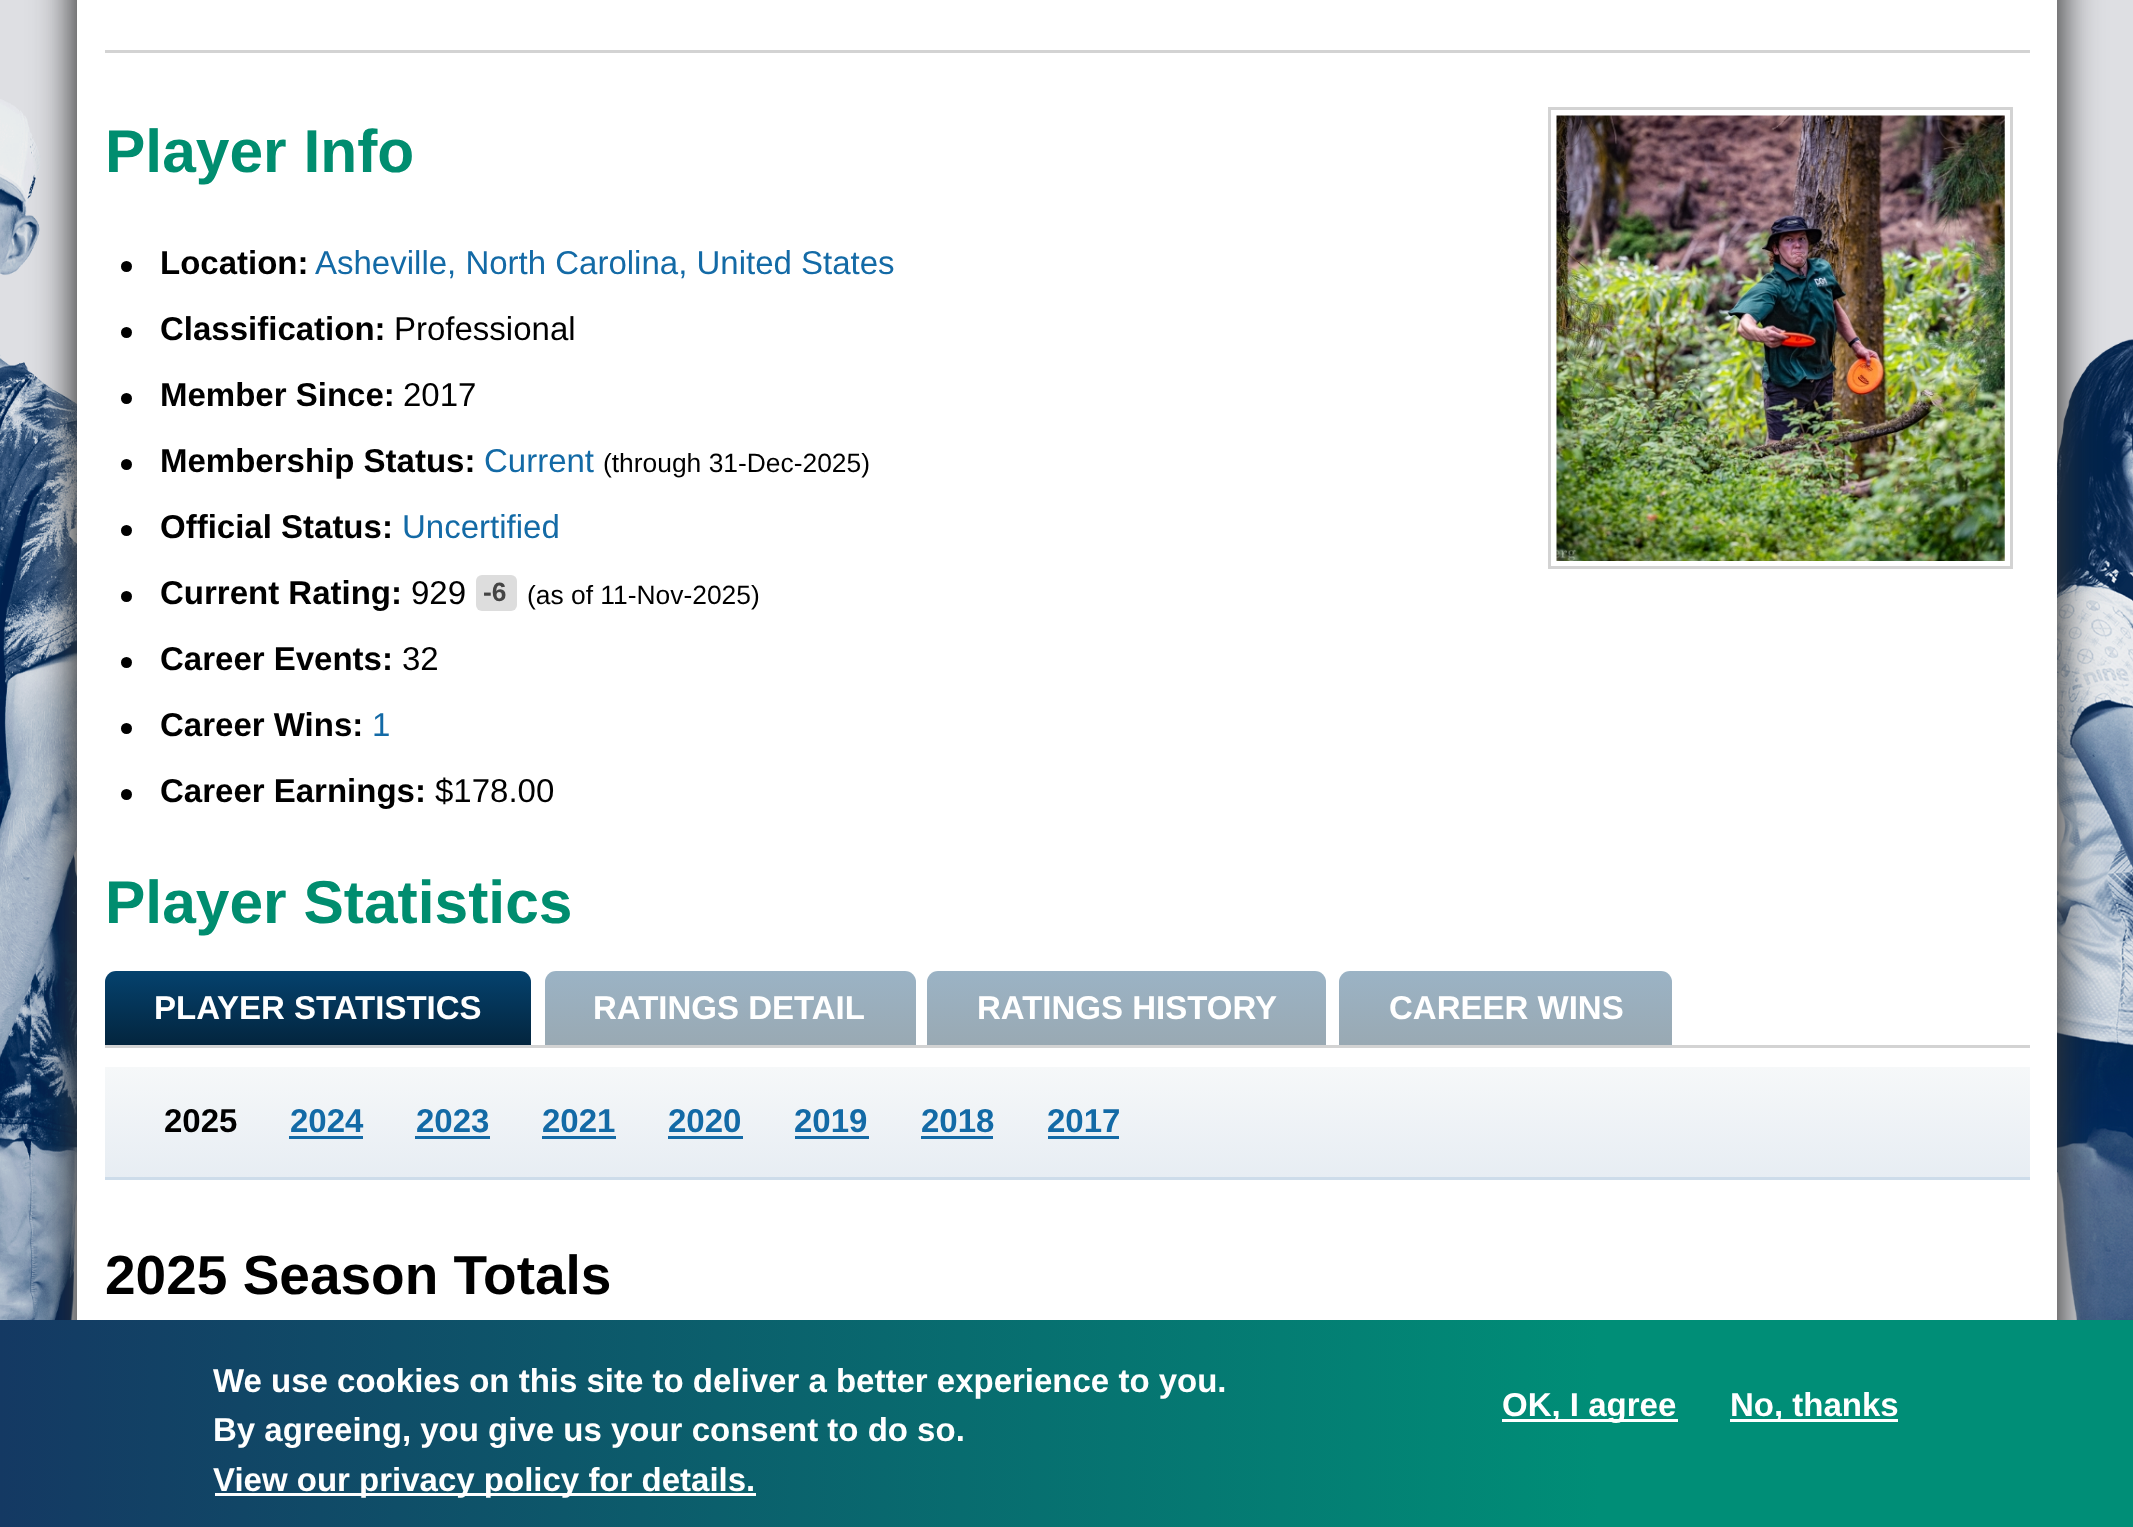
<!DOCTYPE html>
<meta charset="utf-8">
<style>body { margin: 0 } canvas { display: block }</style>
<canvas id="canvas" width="2133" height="1527"></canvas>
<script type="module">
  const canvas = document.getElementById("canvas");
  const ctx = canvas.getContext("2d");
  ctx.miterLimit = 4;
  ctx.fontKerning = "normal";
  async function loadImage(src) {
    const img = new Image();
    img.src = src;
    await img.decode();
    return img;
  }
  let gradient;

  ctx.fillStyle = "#dedfe3";
  ctx.fillRect(0, 0, 2133, 1527);
  ctx.drawImage(await loadImage("img1.png"), 0, 99, 2133, 1221);
  ctx.fillStyle = "#333333";
  ctx.filter = "blur(20.5px)";
  ctx.beginPath();
  ctx.rect(74, -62, 1958, 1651);
  ctx.fill();
  ctx.filter = "none";
  ctx.filter = "blur(20.5px)";
  ctx.beginPath();
  ctx.rect(102, -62, 1958, 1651);
  ctx.fill();
  ctx.filter = "none";
  ctx.fillStyle = "#ffffff";
  ctx.fillRect(77, 0, 1980, 1320);
  ctx.fillStyle = "#d3d3d3";
  ctx.fillRect(105, 50, 1925, 3);
  ctx.font = "bold 60.5px Liberation Sans";
  ctx.fillStyle = "#008d6f";
  ctx.fillText("Player Info", 105, 172);
  ctx.fillStyle = "#000000";
  ctx.beginPath();
  ctx.arc(126.5, 266.5, 5.5, 0, Math.PI * 2);
  ctx.fill();
  ctx.font = "bold 33px Liberation Sans";
  ctx.fillText("Location:", 160, 274);
  ctx.font = "33px Liberation Sans";
  ctx.fillStyle = "#136aa6";
  ctx.fillText("Asheville, North Carolina, United States", 315, 274);
  ctx.fillStyle = "#000000";
  ctx.beginPath();
  ctx.arc(126.5, 332.5, 5.5, 0, Math.PI * 2);
  ctx.fill();
  ctx.font = "bold 33px Liberation Sans";
  ctx.fillText("Classification:", 160, 340);
  ctx.font = "33px Liberation Sans";
  ctx.fillText("Professional", 394, 340);
  ctx.beginPath();
  ctx.arc(126.5, 398.5, 5.5, 0, Math.PI * 2);
  ctx.fill();
  ctx.font = "bold 33px Liberation Sans";
  ctx.fillText("Member Since:", 160, 406);
  ctx.font = "33px Liberation Sans";
  ctx.fillText("2017", 403, 406);
  ctx.beginPath();
  ctx.arc(126.5, 464.5, 5.5, 0, Math.PI * 2);
  ctx.fill();
  ctx.font = "bold 33px Liberation Sans";
  ctx.fillText("Membership Status:", 160, 472);
  ctx.font = "33px Liberation Sans";
  ctx.fillStyle = "#136aa6";
  ctx.fillText("Current", 484, 472);
  ctx.font = "26.4px Liberation Sans";
  ctx.fillStyle = "#000000";
  ctx.fillText("(through 31-Dec-2025)", 603, 472);
  ctx.beginPath();
  ctx.arc(126.5, 530.5, 5.5, 0, Math.PI * 2);
  ctx.fill();
  ctx.font = "bold 33px Liberation Sans";
  ctx.fillText("Official Status:", 160, 538);
  ctx.font = "33px Liberation Sans";
  ctx.fillStyle = "#136aa6";
  ctx.fillText("Uncertified", 402, 538);
  ctx.fillStyle = "#000000";
  ctx.beginPath();
  ctx.arc(126.5, 596.5, 5.5, 0, Math.PI * 2);
  ctx.fill();
  ctx.font = "bold 33px Liberation Sans";
  ctx.fillText("Current Rating:", 160, 604);
  ctx.font = "33px Liberation Sans";
  ctx.fillText("929", 411, 604);
  ctx.fillStyle = "#dddddd";
  ctx.beginPath();
  ctx.roundRect(476, 575, 41, 36, 6);
  ctx.fill();
  ctx.font = "bold 26.4px Liberation Sans";
  ctx.fillStyle = "#444444";
  ctx.fillText("-6", 483, 601);
  ctx.font = "26.4px Liberation Sans";
  ctx.fillStyle = "#000000";
  ctx.fillText("(as of 11-Nov-2025)", 527, 604);
  ctx.beginPath();
  ctx.arc(126.5, 662.5, 5.5, 0, Math.PI * 2);
  ctx.fill();
  ctx.font = "bold 33px Liberation Sans";
  ctx.fillText("Career Events:", 160, 670);
  ctx.font = "33px Liberation Sans";
  ctx.fillText("32", 402, 670);
  ctx.beginPath();
  ctx.arc(126.5, 728.5, 5.5, 0, Math.PI * 2);
  ctx.fill();
  ctx.font = "bold 33px Liberation Sans";
  ctx.fillText("Career Wins:", 160, 736);
  ctx.font = "33px Liberation Sans";
  ctx.fillStyle = "#136aa6";
  ctx.fillText("1", 372, 736);
  ctx.fillStyle = "#000000";
  ctx.beginPath();
  ctx.arc(126.5, 794.5, 5.5, 0, Math.PI * 2);
  ctx.fill();
  ctx.font = "bold 33px Liberation Sans";
  ctx.fillText("Career Earnings:", 160, 802);
  ctx.font = "33px Liberation Sans";
  ctx.fillText("$178.00", 435, 802);
  ctx.strokeStyle = "#d3d3d3";
  ctx.lineWidth = 3;
  ctx.strokeRect(1549.5, 108.5, 462, 459);
  ctx.drawImage(await loadImage("img2.png"), 1556, 115, 449, 446);
  ctx.font = "bold 60.5px Liberation Sans";
  ctx.fillStyle = "#008d6f";
  ctx.fillText("Player Statistics", 105, 923);
  ctx.fillStyle = "#d3d3d3";
  ctx.fillRect(105, 1045, 1925, 3);
  gradient = ctx.createLinearGradient(318, 971, 318, 1045);
  gradient.addColorStop(0, "#05426e");
  gradient.addColorStop(1, "#03253e");
  ctx.fillStyle = gradient;
  ctx.beginPath();
  ctx.roundRect(105, 971, 426, 74, [11, 11, 0, 0]);
  ctx.fill();
  ctx.font = "bold 33px Liberation Sans";
  ctx.fillStyle = "#ffffff";
  ctx.fillText("PLAYER STATISTICS", 154, 1019);
  gradient = ctx.createLinearGradient(730, 971, 730, 1045);
  gradient.addColorStop(0, "#9bb3c5");
  gradient.addColorStop(1, "#99a9b3");
  ctx.fillStyle = gradient;
  ctx.beginPath();
  ctx.roundRect(545, 971, 371, 74, [11, 11, 0, 0]);
  ctx.fill();
  ctx.fillStyle = "#ffffff";
  ctx.fillText("RATINGS DETAIL", 593, 1019);
  gradient = ctx.createLinearGradient(1126, 971, 1126, 1045);
  gradient.addColorStop(0, "#9bb3c5");
  gradient.addColorStop(1, "#99a9b3");
  ctx.fillStyle = gradient;
  ctx.beginPath();
  ctx.roundRect(927, 971, 399, 74, [11, 11, 0, 0]);
  ctx.fill();
  ctx.fillStyle = "#ffffff";
  ctx.fillText("RATINGS HISTORY", 977, 1019);
  gradient = ctx.createLinearGradient(1506, 971, 1506, 1045);
  gradient.addColorStop(0, "#9bb3c5");
  gradient.addColorStop(1, "#99a9b3");
  ctx.fillStyle = gradient;
  ctx.beginPath();
  ctx.roundRect(1339, 971, 333, 74, [11, 11, 0, 0]);
  ctx.fill();
  ctx.fillStyle = "#ffffff";
  ctx.fillText("CAREER WINS", 1389, 1019);
  gradient = ctx.createLinearGradient(1067, 1067, 1067, 1177);
  gradient.addColorStop(0, "#f6f8f9");
  gradient.addColorStop(1, "#e7edf3");
  ctx.fillStyle = gradient;
  ctx.fillRect(105, 1067, 1925, 110);
  ctx.fillStyle = "#cddcea";
  ctx.fillRect(105, 1177, 1925, 3);
  ctx.fillStyle = "#000000";
  ctx.fillText("2025", 164, 1132);
  ctx.fillStyle = "#136aa6";
  ctx.fillText("2024", 290, 1132);
  ctx.fillRect(289, 1136, 74, 3);
  ctx.fillText("2023", 416, 1132);
  ctx.fillRect(415, 1136, 75, 3);
  ctx.fillText("2021", 542, 1132);
  ctx.fillRect(542, 1136, 74, 3);
  ctx.fillText("2020", 668, 1132);
  ctx.fillRect(668, 1136, 75, 3);
  ctx.fillText("2019", 794, 1132);
  ctx.fillRect(795, 1136, 74, 3);
  ctx.fillText("2018", 921, 1132);
  ctx.fillRect(921, 1136, 72, 3);
  ctx.fillText("2017", 1047, 1132);
  ctx.fillRect(1048, 1136, 71, 3);
  ctx.font = "bold 55px Liberation Sans";
  ctx.fillStyle = "#000000";
  ctx.fillText("2025 Season Totals", 105, 1294);
  gradient = ctx.createLinearGradient(0, 1425, 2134, 1425);
  gradient.addColorStop(0, "#143963");
  gradient.addColorStop(0.75, "#008e77");
  ctx.fillStyle = gradient;
  ctx.fillRect(0, 1320, 2133, 207);
  ctx.font = "bold 33px Liberation Sans";
  ctx.fillStyle = "#ffffff";
  ctx.fillText("We use cookies on this site to deliver a better experience to you.", 213, 1392);
  ctx.fillText("By agreeing, you give us your consent to do so.", 213, 1441);
  ctx.fillRect(215, 1493, 541, 3);
  ctx.fillText("View our privacy policy for details.", 213, 1491);
  ctx.fillRect(1502, 1419, 176, 3);
  ctx.fillText("OK, I agree", 1502, 1416);
  ctx.fillRect(1730, 1419, 168, 3);
  ctx.fillText("No, thanks", 1730, 1416);
</script>
